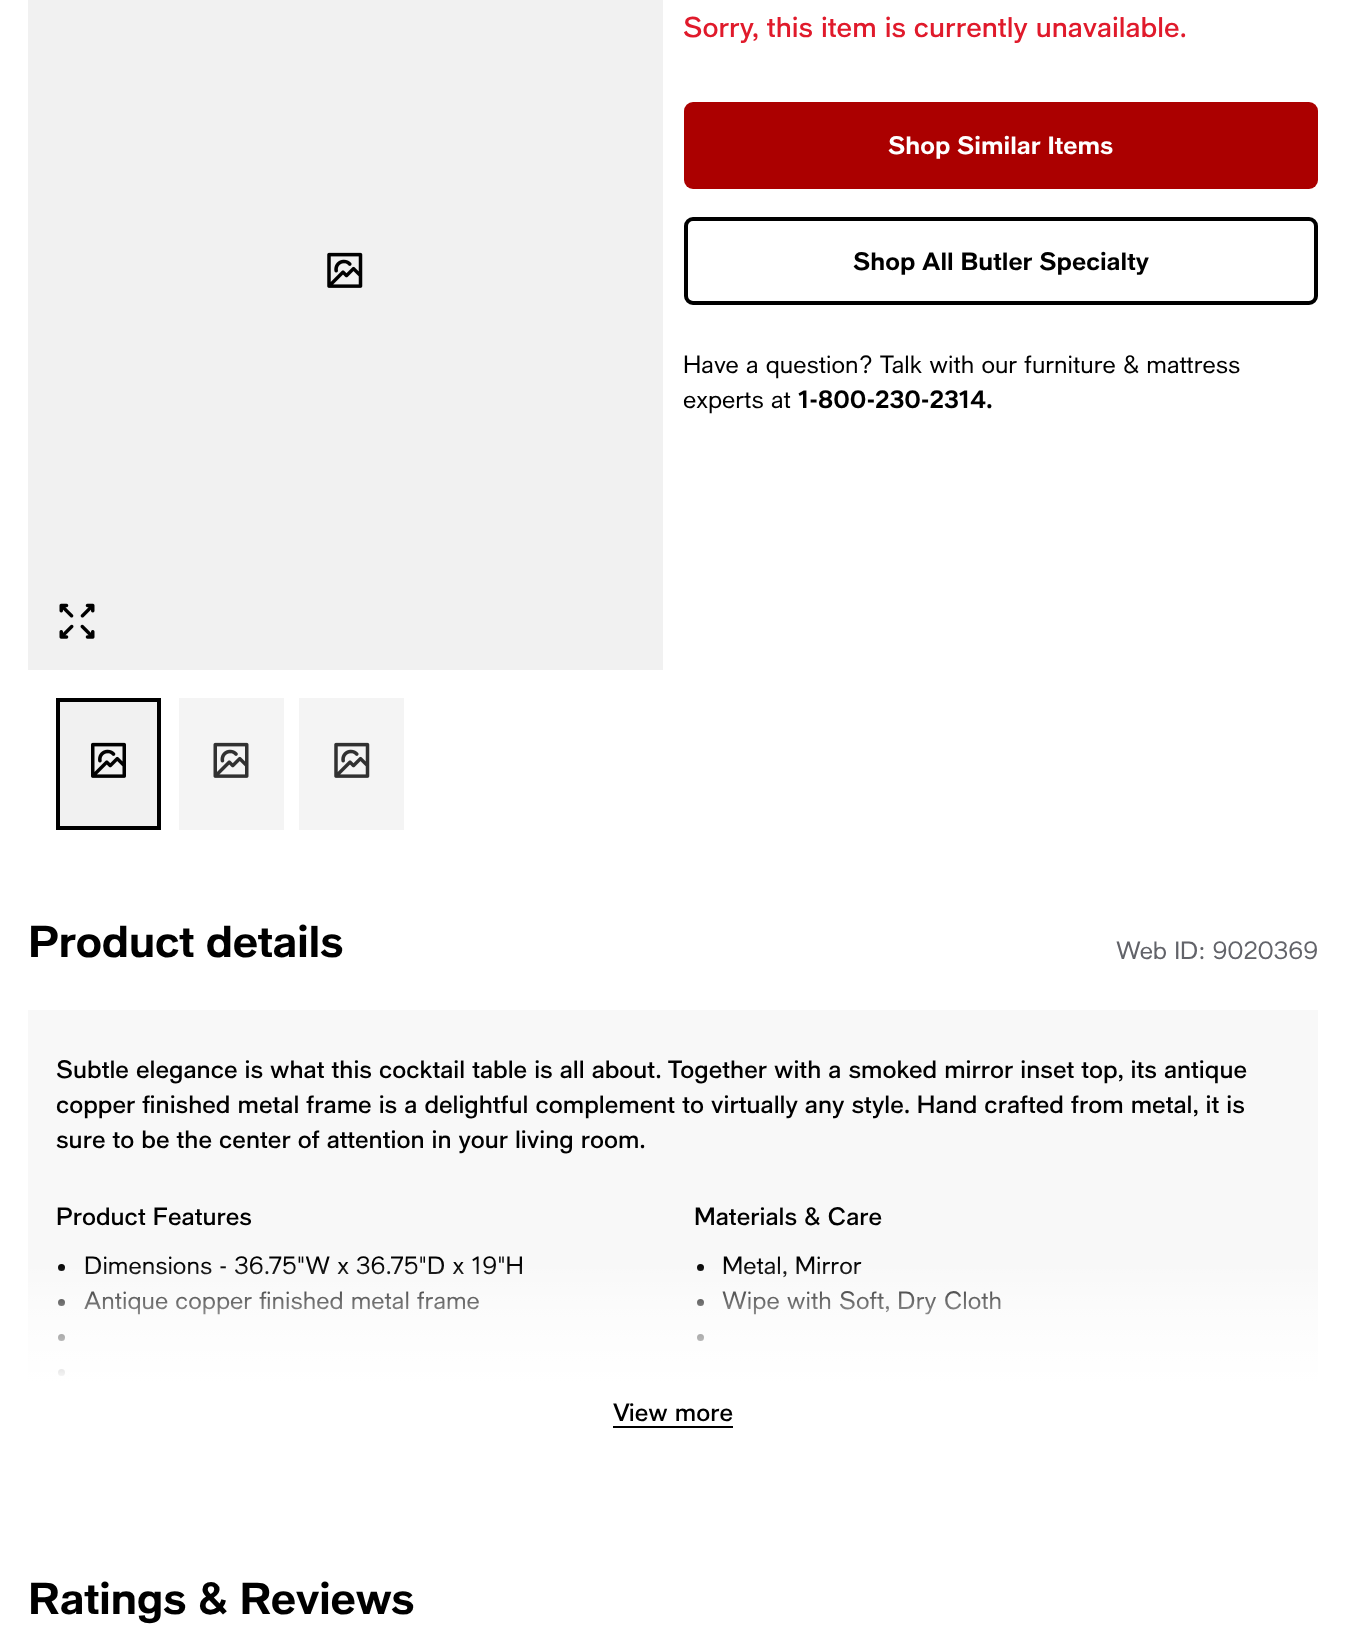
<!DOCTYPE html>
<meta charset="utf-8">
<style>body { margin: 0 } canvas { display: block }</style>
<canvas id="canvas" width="1345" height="1647"></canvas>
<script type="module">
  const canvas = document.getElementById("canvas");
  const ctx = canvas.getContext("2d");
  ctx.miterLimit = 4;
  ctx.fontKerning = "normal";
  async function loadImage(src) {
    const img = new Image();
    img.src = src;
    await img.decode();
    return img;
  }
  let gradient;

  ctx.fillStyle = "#ffffff";
  ctx.fillRect(0, 0, 1345, 1647);
  ctx.fillStyle = "#f1f1f1";
  ctx.fillRect(28, 0, 635, 670);
  ctx.drawImage(await loadImage("img1.png"), 327, 252, 36, 36);
  ctx.drawImage(await loadImage("img2.png"), 59, 603, 36, 36);
  ctx.fillRect(60, 702, 97, 124);
  ctx.drawImage(await loadImage("img3.png"), 91, 742, 35, 36);
  ctx.strokeStyle = "#000000";
  ctx.lineWidth = 4;
  ctx.strokeRect(58, 700, 101, 128);
  ctx.fillStyle = "#f4f4f4";
  ctx.fillRect(179, 698, 105, 132);
  ctx.drawImage(await loadImage("img4.png"), 213, 742, 36, 36);
  ctx.fillRect(299, 698, 105, 132);
  ctx.drawImage(await loadImage("img5.png"), 334, 742, 36, 36);
  ctx.font = "500 28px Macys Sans";
  ctx.fillStyle = "#e01a2b";
  ctx.fillText("Sorry, this item is currently unavailable.", 683, 37);
  ctx.fillStyle = "#ab0000";
  ctx.beginPath();
  ctx.roundRect(684, 102, 634, 87, 9);
  ctx.fill();
  ctx.font = "bold 24.5px Macys Sans";
  ctx.fillStyle = "#ffffff";
  ctx.fillText("Shop Similar Items", 888, 154);
  ctx.beginPath();
  ctx.roundRect(686, 219, 630, 84, 7);
  ctx.stroke();
  ctx.fillStyle = "#000000";
  ctx.fillText("Shop All Butler Specialty", 853, 270);
  ctx.font = "24.5px Macys Sans";
  ctx.fillText("Have a question? Talk with our furniture & mattress", 683, 373);
  ctx.fillText("experts at", 683, 408);
  ctx.font = "bold 24.5px Macys Sans";
  ctx.fillText("1-800-230-2314.", 798, 408);
  ctx.letterSpacing = "-0.4px";
  ctx.font = "bold 43.75px Macys Sans";
  ctx.fillText("Product details", 28, 957);
  ctx.letterSpacing = "0px";
  ctx.font = "24.5px Macys Sans";
  ctx.fillStyle = "#626369";
  ctx.fillText("Web ID: 9020369", 1116, 959);
  ctx.fillStyle = "#f8f8f8";
  ctx.fillRect(28, 1010, 1290, 372);
  ctx.font = "500 24.5px Macys Sans";
  ctx.fillStyle = "#000000";
  ctx.fillText("Subtle elegance is what this cocktail table is all about. Together with a smoked mirror inset top, its antique", 56, 1078);
  ctx.fillText("copper finished metal frame is a delightful complement to virtually any style. Hand crafted from metal, it is", 56, 1113);
  ctx.fillText("sure to be the center of attention in your living room.", 56, 1148);
  ctx.fillText("Product Features", 56, 1225);
  ctx.beginPath();
  ctx.arc(61.5, 1267.5, 3.5, 0, Math.PI * 2);
  ctx.fill();
  ctx.font = "24.5px Macys Sans";
  ctx.fillText("Dimensions - 36.75\"W x 36.75\"D x 19\"H", 84, 1274);
  ctx.beginPath();
  ctx.arc(61.5, 1302.5, 3.5, 0, Math.PI * 2);
  ctx.fill();
  ctx.fillText("Antique copper finished metal frame", 84, 1309);
  ctx.beginPath();
  ctx.arc(61.5, 1337.5, 3.5, 0, Math.PI * 2);
  ctx.fill();
  ctx.beginPath();
  ctx.arc(61.5, 1372.5, 3.5, 0, Math.PI * 2);
  ctx.fill();
  ctx.font = "500 24.5px Macys Sans";
  ctx.fillText("Materials & Care", 694, 1225);
  ctx.beginPath();
  ctx.arc(700.5, 1267.5, 3.5, 0, Math.PI * 2);
  ctx.fill();
  ctx.font = "24.5px Macys Sans";
  ctx.fillText("Metal, Mirror", 722, 1274);
  ctx.beginPath();
  ctx.arc(700.5, 1302.5, 3.5, 0, Math.PI * 2);
  ctx.fill();
  ctx.fillText("Wipe with Soft, Dry Cloth", 722, 1309);
  ctx.beginPath();
  ctx.arc(700.5, 1337.5, 3.5, 0, Math.PI * 2);
  ctx.fill();
  gradient = ctx.createLinearGradient(673, 1262, 673, 1430);
  gradient.addColorStop(0, "rgba(255, 255, 255, 0)");
  gradient.addColorStop(0.28, "rgba(255, 255, 255, 0.5)");
  gradient.addColorStop(0.72, "#ffffff");
  ctx.fillStyle = gradient;
  ctx.fillRect(28, 1264, 1290, 118);
  ctx.font = "500 24.5px Macys Sans";
  ctx.fillStyle = "#000000";
  ctx.fillText("View more", 613, 1421);
  ctx.fillRect(613, 1426, 120, 2);
  ctx.letterSpacing = "-0.4px";
  ctx.font = "bold 43.75px Macys Sans";
  ctx.fillText("Ratings & Reviews", 28, 1614);
</script>
